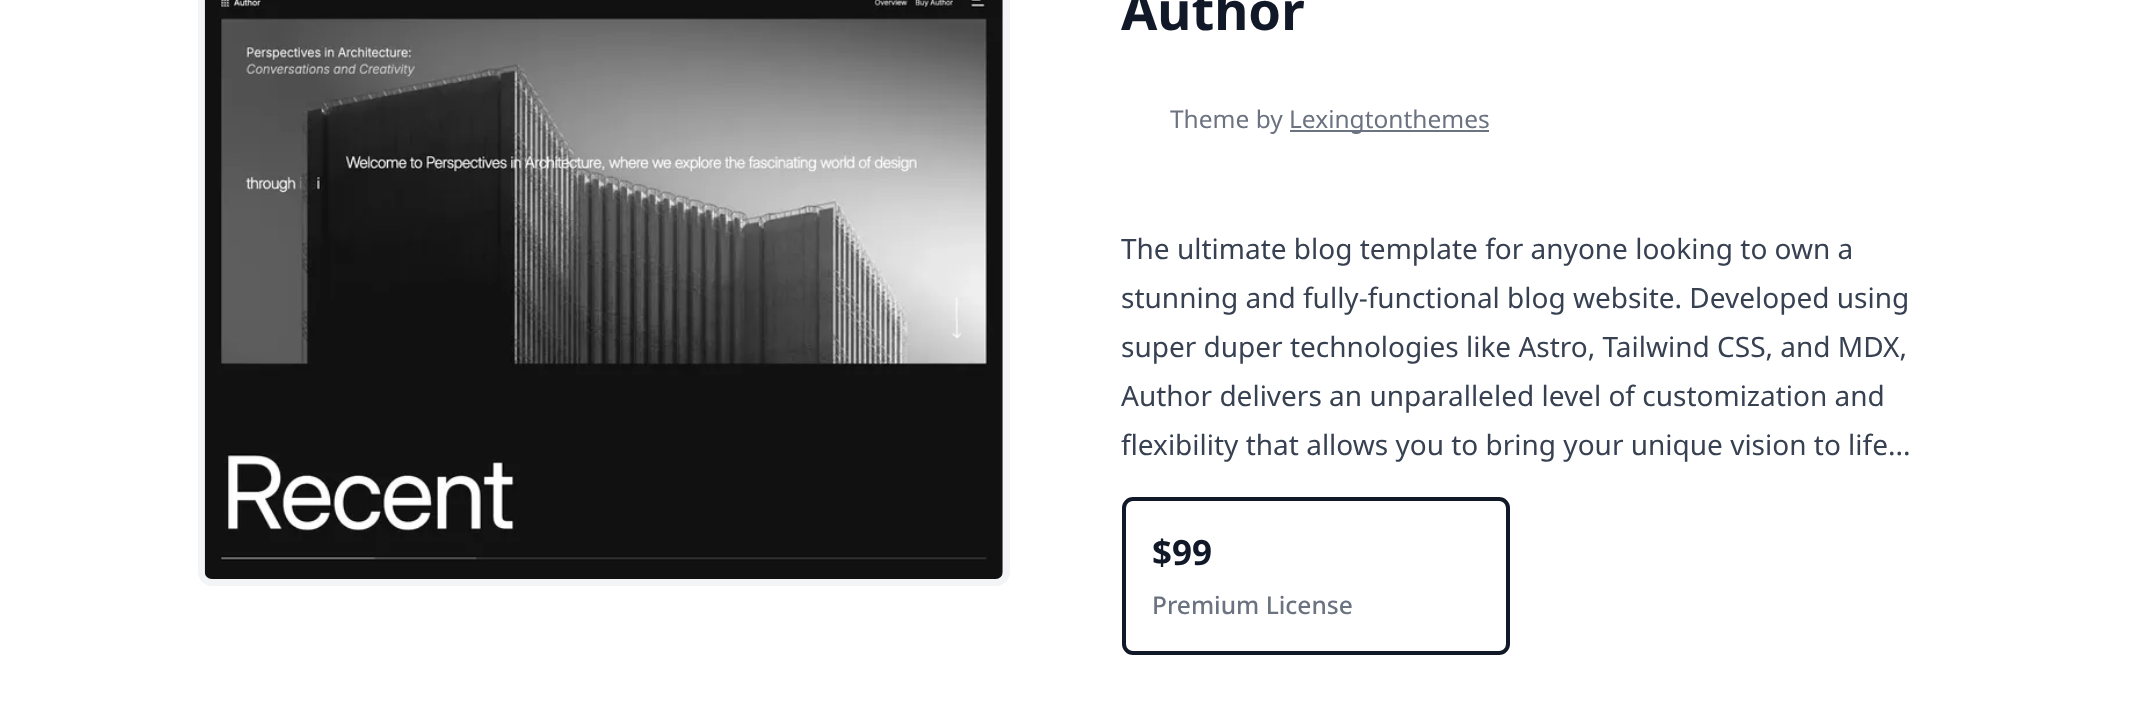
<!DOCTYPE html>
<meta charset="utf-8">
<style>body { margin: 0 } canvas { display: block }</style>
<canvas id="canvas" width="2129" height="713"></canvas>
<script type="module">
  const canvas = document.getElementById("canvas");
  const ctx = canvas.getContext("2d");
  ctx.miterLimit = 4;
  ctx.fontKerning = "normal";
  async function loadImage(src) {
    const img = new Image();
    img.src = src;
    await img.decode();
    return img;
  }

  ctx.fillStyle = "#ffffff";
  ctx.fillRect(0, 0, 2129, 713);
  ctx.beginPath();
  ctx.roundRect(201.5, -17.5, 805, 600, 10.5);
  ctx.strokeStyle = "#f3f4f6";
  ctx.lineWidth = 7;
  ctx.stroke();
  ctx.drawImage(await loadImage("img1.png"), 204, 0, 799, 579);
  ctx.font = "bold 52.5px Noto Sans";
  ctx.fillStyle = "#111827";
  ctx.fillText("Author", 1121, 30);
  ctx.font = "24.5px Noto Sans";
  ctx.fillStyle = "#6b7280";
  ctx.fillText("Theme by", 1170, 128);
  ctx.fillRect(1290, 130, 199, 2);
  ctx.fillText("Lexingtonthemes", 1289, 128);
  ctx.font = "28px Noto Sans";
  ctx.fillStyle = "#374151";
  ctx.fillText("The ultimate blog template for anyone looking to own a", 1121, 259);
  ctx.fillText("stunning and fully-functional blog website. Developed using", 1121, 308);
  ctx.fillText("super duper technologies like Astro, Tailwind CSS, and MDX,", 1121, 357);
  ctx.fillText("Author delivers an unparalleled level of customization and", 1121, 406);
  ctx.fillText("flexibility that allows you to bring your unique vision to life...", 1121, 455);
  ctx.beginPath();
  ctx.roundRect(1124, 499, 384, 154, 9);
  ctx.strokeStyle = "#111827";
  ctx.lineWidth = 4;
  ctx.stroke();
  ctx.font = "bold 35px Noto Sans";
  ctx.fillStyle = "#111827";
  ctx.fillText("$99", 1152, 565);
  ctx.font = "500 24.5px Noto Sans";
  ctx.fillStyle = "#6b7280";
  ctx.fillText("Premium License", 1152, 614);
</script>
